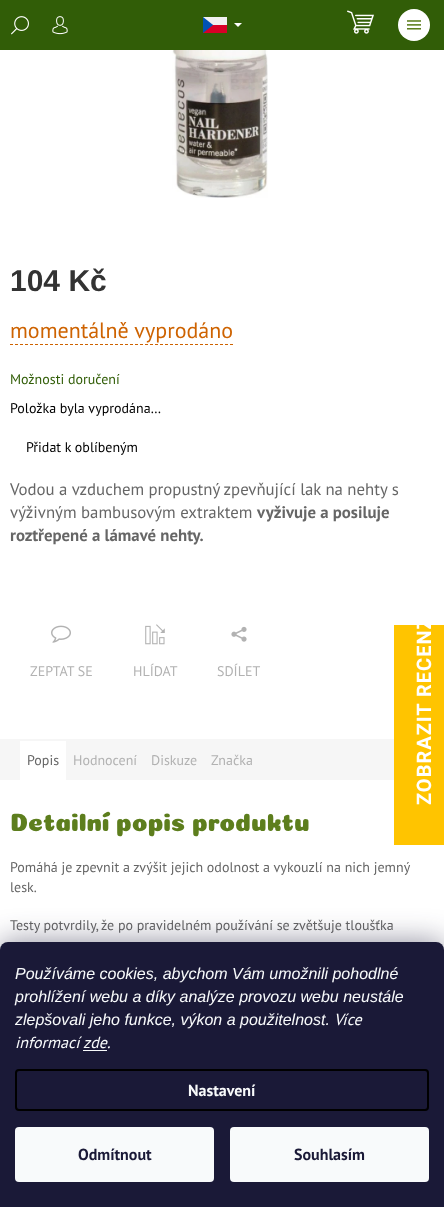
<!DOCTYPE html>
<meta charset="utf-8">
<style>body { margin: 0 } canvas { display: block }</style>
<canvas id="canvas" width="444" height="1207"></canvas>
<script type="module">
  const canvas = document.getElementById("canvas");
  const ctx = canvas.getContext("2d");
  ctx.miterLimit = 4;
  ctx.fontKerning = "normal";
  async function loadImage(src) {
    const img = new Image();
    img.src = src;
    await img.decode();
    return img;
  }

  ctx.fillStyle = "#ffffff";
  ctx.fillRect(0, 0, 444, 1207);
  ctx.fillStyle = "#315d07";
  ctx.fillRect(0, 0, 444, 50);
  ctx.drawImage(await loadImage("img1.png"), 11, 16, 18, 19);
  ctx.drawImage(await loadImage("img2.png"), 52, 16, 16, 19);
  ctx.fillStyle = "#ffffff";
  ctx.beginPath();
  ctx.arc(414, 25, 16, 0, Math.PI * 2);
  ctx.fill();
  ctx.drawImage(await loadImage("img3.png"), 407, 20, 14, 10);
  ctx.drawImage(await loadImage("img4.png"), 203, 17, 24, 16);
  ctx.beginPath();
  ctx.moveTo(234, 23);
  ctx.lineTo(242, 23);
  ctx.lineTo(238, 27);
  ctx.closePath();
  ctx.fill();
  ctx.drawImage(await loadImage("img5.png"), 347, 10, 27, 24);
  ctx.drawImage(await loadImage("img6.png"), 172, 50, 96, 148);
  ctx.font = "bold 30px Liberation Sans";
  ctx.fillStyle = "#333333";
  ctx.fillText("104 Kč", 10, 291);
  ctx.font = "22px PT Sans";
  ctx.fillStyle = "#ce6301";
  ctx.fillText("momentálně vyprodáno", 10, 338);
  ctx.beginPath();
  ctx.moveTo(10, 344.5);
  ctx.lineTo(233, 344.5);
  ctx.strokeStyle = "#ce6301";
  ctx.setLineDash([3, 2]);
  ctx.stroke();
  ctx.font = "14px PT Sans";
  ctx.fillStyle = "#315d07";
  ctx.fillText("Možnosti doručení", 10, 384);
  ctx.fillStyle = "#000000";
  ctx.fillText("Položka byla vyprodána…", 10, 413);
  ctx.fillText("Přidat k oblíbeným", 26, 452);
  ctx.font = "16.8px PT Sans";
  ctx.fillStyle = "#666666";
  ctx.fillText("Vodou a vzduchem propustný zpevňující lak na nehty s", 10, 495);
  ctx.fillText("výživným bambusovým extraktem", 10, 518);
  ctx.font = "bold 16.8px PT Sans";
  ctx.fillText("vyživuje a posiluje", 257, 518);
  ctx.fillText("roztřepené a lámavé nehty.", 10, 541);
  ctx.drawImage(await loadImage("img7.png"), 51, 625, 20, 18);
  ctx.font = "14px PT Sans";
  ctx.fillStyle = "#b2b2b2";
  ctx.fillText("ZEPTAT SE", 30, 676);
  ctx.drawImage(await loadImage("img8.png"), 145, 624, 20, 21);
  ctx.fillText("HLÍDAT", 133, 676);
  ctx.drawImage(await loadImage("img9.png"), 231, 626, 16, 16);
  ctx.fillText("SDÍLET", 217, 676);
  ctx.fillStyle = "#f6f6f6";
  ctx.fillRect(0, 739, 394, 41);
  ctx.fillStyle = "#ffffff";
  ctx.fillRect(20, 741, 46, 39);
  ctx.fillStyle = "#666666";
  ctx.fillText("Popis", 27, 765);
  ctx.fillStyle = "#b2b2b2";
  ctx.fillText("Hodnocení", 73, 765);
  ctx.fillText("Diskuze", 151, 765);
  ctx.fillText("Značka", 211, 765);
  ctx.font = "25.25px Coiny";
  ctx.fillStyle = "#5d7e1d";
  ctx.fillText("Detailní popis produktu", 10, 831);
  ctx.font = "14px PT Sans";
  ctx.fillStyle = "#666666";
  ctx.fillText("Pomáhá je zpevnit a zvýšit jejich odolnost a vykouzlí na nich jemný", 10, 872);
  ctx.fillText("lesk.", 10, 892);
  ctx.fillText("Testy potvrdily, že po pravidelném používání se zvětšuje tloušťka", 10, 930);
  ctx.fillStyle = "#ffc400";
  ctx.fillRect(394, 625, 50, 220);
  ctx.letterSpacing = "1px";
  ctx.font = "bold 20px Roboto";
  ctx.fillStyle = "#ffffff";
  ctx.save();
  ctx.translate(431, 805);
  ctx.rotate(-90 * Math.PI / 180);
  ctx.fillText("ZOBRAZIT RECENZE", 0, 0);
  ctx.restore();
  ctx.fillStyle = "rgba(27, 25, 57, 0.5)";
  ctx.filter = "blur(15px)";
  ctx.beginPath();
  ctx.roundRect(0, 942, 444, 265, 8);
  ctx.fill();
  ctx.filter = "none";
  ctx.fillStyle = "#1a1937";
  ctx.beginPath();
  ctx.roundRect(0, 942, 444, 265, [8, 8, 0, 0]);
  ctx.fill();
  ctx.letterSpacing = "0px";
  ctx.font = "italic 16px Liberation Sans";
  ctx.fillStyle = "#f8fafb";
  ctx.fillText("Používáme cookies, abychom Vám umožnili pohodlné", 15, 979);
  ctx.fillText("prohlížení webu a díky analýze provozu webu neustále", 15, 1002);
  ctx.fillText("zlepšovali jeho funkce, výkon a použitelnost.", 15, 1025);
  ctx.font = "italic 16px PT Sans";
  ctx.fillText("Více", 334, 1025);
  ctx.fillText("informací", 15, 1048);
  ctx.fillText("zde.", 83, 1048);
  ctx.fillRect(83, 1050, 24, 1);
  ctx.beginPath();
  ctx.roundRect(16, 1070, 412, 40, 3);
  ctx.strokeStyle = "#000000";
  ctx.lineWidth = 2;
  ctx.setLineDash([]);
  ctx.stroke();
  ctx.font = "bold 16px PT Sans";
  ctx.fillText("Nastavení", 188, 1096);
  ctx.beginPath();
  ctx.roundRect(15, 1127, 199, 55, 4);
  ctx.fill();
  ctx.fillStyle = "#1a1937";
  ctx.fillText("Odmítnout", 78, 1160);
  ctx.fillStyle = "#f8fafb";
  ctx.beginPath();
  ctx.roundRect(230, 1127, 199, 55, 4);
  ctx.fill();
  ctx.fillStyle = "#1a1937";
  ctx.fillText("Souhlasím", 294, 1160);
</script>
